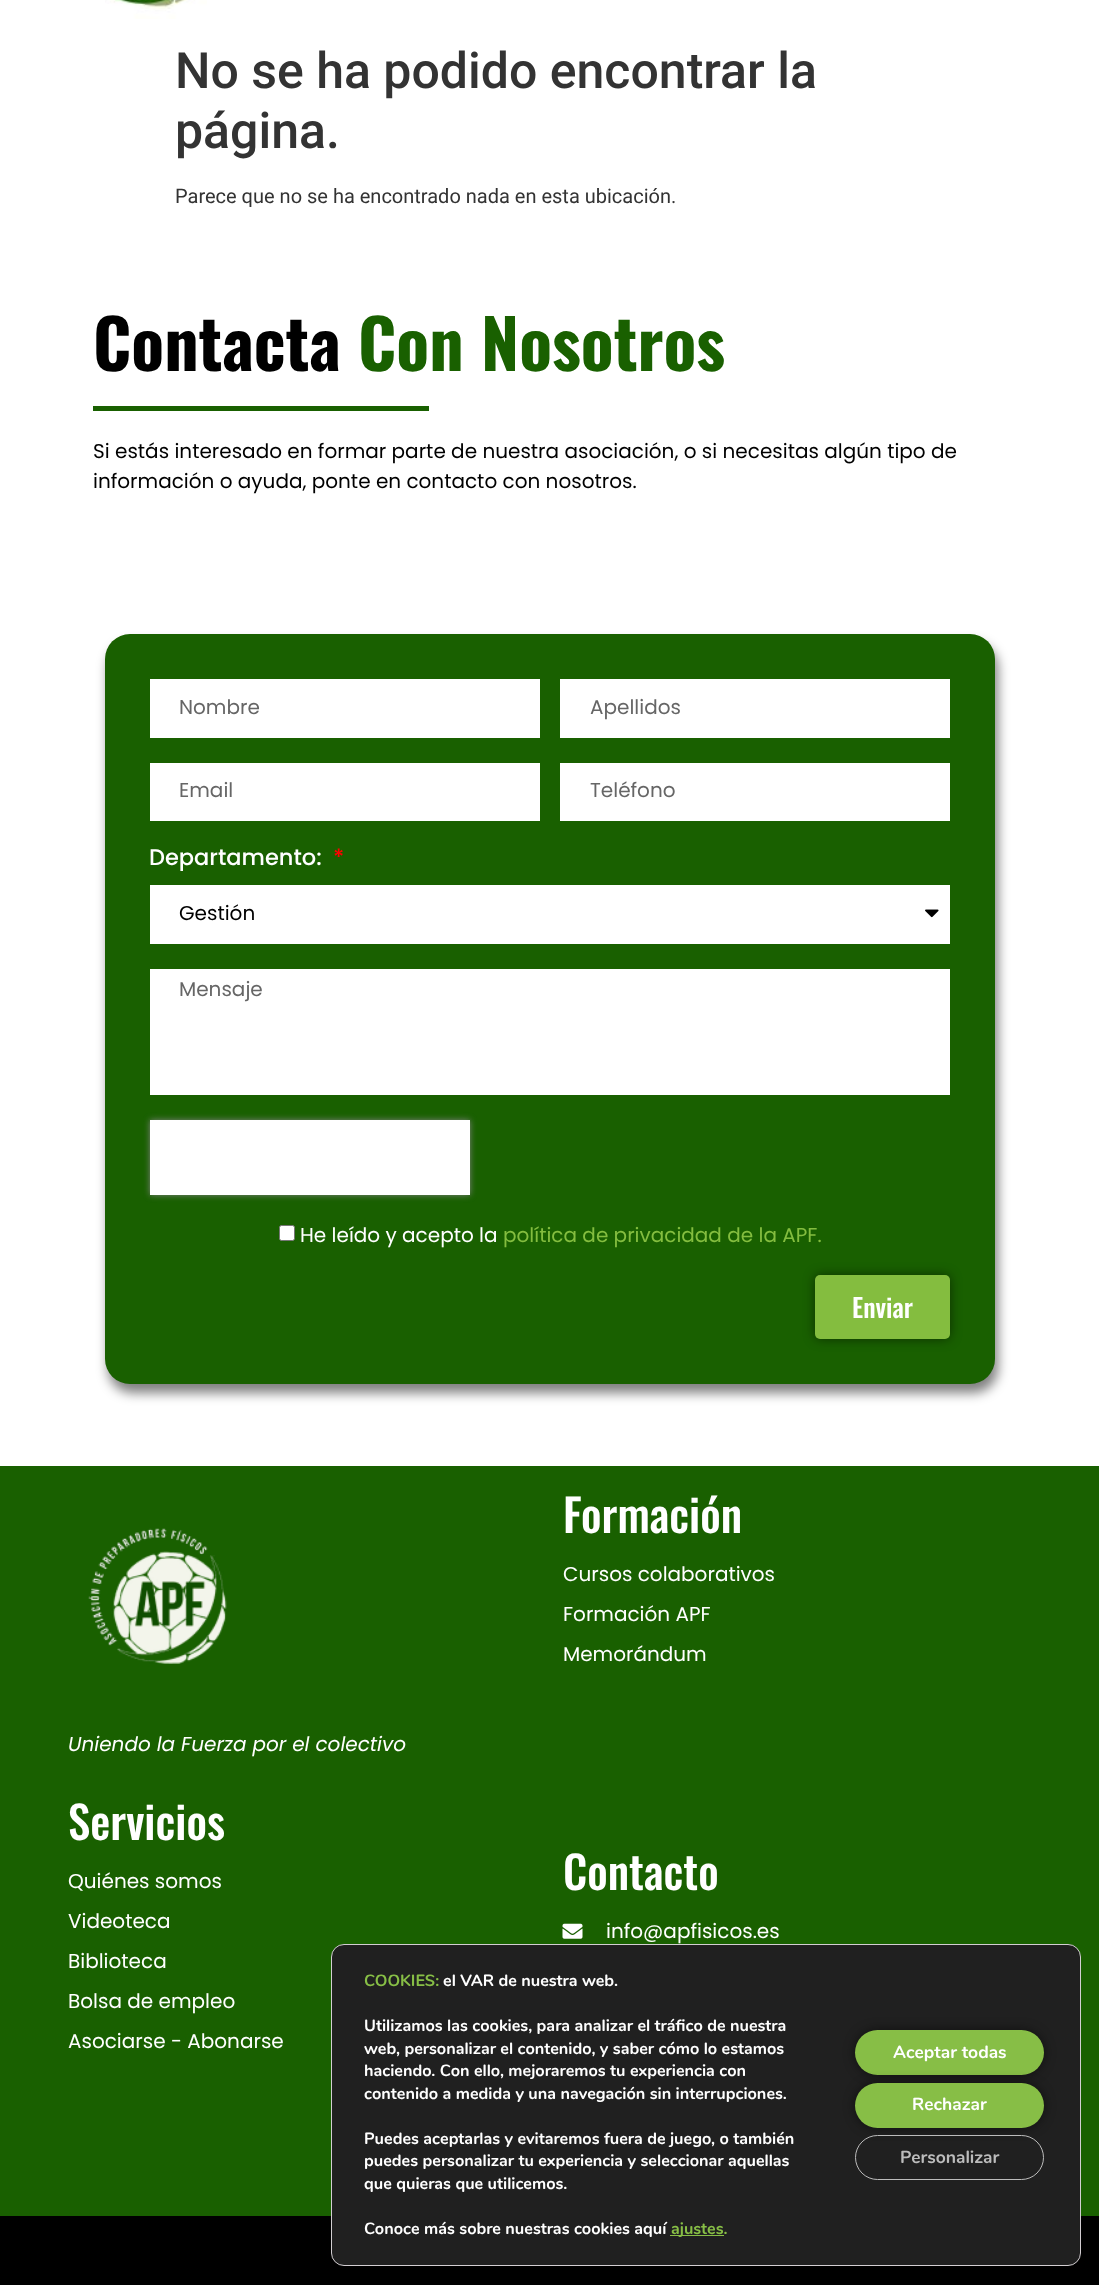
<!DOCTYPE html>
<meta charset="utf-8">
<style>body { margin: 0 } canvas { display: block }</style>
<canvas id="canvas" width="1099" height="2285"></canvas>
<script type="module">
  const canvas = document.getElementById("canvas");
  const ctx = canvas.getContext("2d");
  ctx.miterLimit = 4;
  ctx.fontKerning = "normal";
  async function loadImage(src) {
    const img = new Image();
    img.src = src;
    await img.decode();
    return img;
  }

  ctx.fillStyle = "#ffffff";
  ctx.fillRect(0, 0, 1099, 2285);
  ctx.drawImage(await loadImage("img1.png"), 105, 0, 102, 19);
  ctx.font = "500 50px Roboto";
  ctx.fillStyle = "#333333";
  ctx.fillText("No se ha podido encontrar la", 175, 88);
  ctx.fillText("página.", 175, 148);
  ctx.font = "20px Roboto";
  ctx.fillText("Parece que no se ha encontrado nada en esta ubicación.", 175, 203);
  ctx.font = "bold 68px Oswald";
  ctx.fillStyle = "#000000";
  ctx.fillText("Contacta", 93, 371);
  ctx.fillStyle = "#196000";
  ctx.fillText("Con Nosotros", 358, 371);
  ctx.fillRect(93, 406, 336, 5);
  ctx.font = "20px Poppins";
  ctx.fillStyle = "#000000";
  ctx.fillText("Si estás interesado en formar parte de nuestra asociación, o si necesitas algún tipo de", 93, 458);
  ctx.fillText("información o ayuda, ponte en contacto con nosotros.", 93, 488);
  ctx.fillStyle = "rgba(0, 0, 0, 0.5)";
  ctx.filter = "blur(6px)";
  ctx.beginPath();
  ctx.roundRect(108, 643, 890, 750, 25);
  ctx.fill();
  ctx.filter = "none";
  ctx.fillStyle = "#196000";
  ctx.beginPath();
  ctx.roundRect(105, 634, 890, 750, 25);
  ctx.fill();
  ctx.fillStyle = "#ffffff";
  ctx.fillRect(150, 679, 390, 59);
  ctx.fillStyle = "#666666";
  ctx.fillText("Nombre", 179, 714);
  ctx.fillStyle = "#ffffff";
  ctx.fillRect(560, 679, 390, 59);
  ctx.fillStyle = "#666666";
  ctx.fillText("Apellidos", 590, 714);
  ctx.fillStyle = "#ffffff";
  ctx.fillRect(150, 763, 390, 58);
  ctx.fillStyle = "#666666";
  ctx.fillText("Email", 179, 797);
  ctx.fillStyle = "#ffffff";
  ctx.fillRect(560, 763, 390, 58);
  ctx.fillStyle = "#666666";
  ctx.fillText("Teléfono", 590, 797);
  ctx.font = "500 22.5px Poppins";
  ctx.fillStyle = "#ffffff";
  ctx.fillText("Departamento:", 149, 865);
  ctx.fillStyle = "#ff0000";
  ctx.fillText("*", 333, 865);
  ctx.fillStyle = "#ffffff";
  ctx.fillRect(150, 885, 800, 59);
  ctx.font = "20px Poppins";
  ctx.fillStyle = "#000000";
  ctx.fillText("Gestión", 179, 920);
  ctx.drawImage(await loadImage("img2.png"), 925, 909, 14, 9);
  ctx.fillStyle = "#ffffff";
  ctx.fillRect(150, 969, 800, 126);
  ctx.fillStyle = "#666666";
  ctx.fillText("Mensaje", 179, 996);
  ctx.fillStyle = "#ffffff";
  ctx.fillRect(150, 1120, 320, 75);
  ctx.save();
  ctx.beginPath();
  ctx.moveTo(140, 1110);
  ctx.lineTo(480, 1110);
  ctx.lineTo(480, 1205);
  ctx.lineTo(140, 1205);
  ctx.closePath();
  ctx.moveTo(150, 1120);
  ctx.lineTo(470, 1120);
  ctx.lineTo(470, 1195);
  ctx.lineTo(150, 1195);
  ctx.closePath();
  ctx.clip("evenodd");
  ctx.fillStyle = "#808080";
  ctx.filter = "blur(3px)";
  ctx.beginPath();
  ctx.rect(150, 1120, 320, 75);
  ctx.fill();
  ctx.filter = "none";
  ctx.restore();
  ctx.beginPath();
  ctx.roundRect(279.5, 1225.5, 15, 15, 2);
  ctx.fill();
  ctx.strokeStyle = "#767676";
  ctx.stroke();
  ctx.fillText("He leído y acepto la", 300, 1242);
  ctx.fillStyle = "#84bd3f";
  ctx.fillText("política de privacidad de la APF.", 503, 1242);
  ctx.fillStyle = "rgba(0, 0, 0, 0.5)";
  ctx.filter = "blur(6px)";
  ctx.beginPath();
  ctx.roundRect(815, 1275, 135, 64, 5);
  ctx.fill();
  ctx.filter = "none";
  ctx.fillStyle = "#84bd3f";
  ctx.beginPath();
  ctx.roundRect(815, 1275, 135, 64, 5);
  ctx.fill();
  ctx.font = "500 26px Oswald";
  ctx.fillStyle = "#ffffff";
  ctx.fillText("Enviar", 852, 1318);
  ctx.fillStyle = "#196000";
  ctx.fillRect(0, 1466, 1099, 750);
  ctx.font = "500 45px Oswald";
  ctx.fillStyle = "#ffffff";
  ctx.fillText("Formación", 563, 1533);
  ctx.font = "20px Poppins";
  ctx.fillText("Cursos colaborativos", 563, 1581);
  ctx.fillText("Formación APF", 563, 1621);
  ctx.fillText("Memorándum", 563, 1661);
  ctx.drawImage(await loadImage("img3.png"), 88, 1528, 139, 136);
  ctx.font = "italic 20px Poppins";
  ctx.fillText("Uniendo la Fuerza por el colectivo", 68, 1751);
  ctx.font = "500 45px Oswald";
  ctx.fillText("Servicios", 68, 1840);
  ctx.font = "20px Poppins";
  ctx.fillText("Quiénes somos", 68, 1888);
  ctx.fillText("Videoteca", 68, 1928);
  ctx.fillText("Biblioteca", 68, 1968);
  ctx.fillText("Bolsa de empleo", 68, 2008);
  ctx.fillText("Asociarse - Abonarse", 68, 2048);
  ctx.font = "500 45px Oswald";
  ctx.fillText("Contacto", 563, 1890);
  ctx.drawImage(await loadImage("img4.png"), 562, 1923, 21, 16);
  ctx.font = "20px Poppins";
  ctx.fillText("info@apfisicos.es", 606, 1938);
  ctx.fillStyle = "#000000";
  ctx.fillRect(0, 2216, 1099, 69);
  ctx.fillStyle = "#202020";
  ctx.beginPath();
  ctx.roundRect(331.5, 1944.5, 749, 321, 12.5);
  ctx.fill();
  ctx.strokeStyle = "#d3ced2";
  ctx.stroke();
  ctx.font = "bold 16.25px Nunito";
  ctx.fillStyle = "#87be46";
  ctx.fillText("COOKIES:", 364, 1986);
  ctx.fillStyle = "#ffffff";
  ctx.fillText("el VAR de nuestra web.", 443, 1986);
  ctx.fillText("Utilizamos las cookies, para analizar el tráfico de nuestra", 364, 2031);
  ctx.fillText("web, personalizar el contenido, y saber cómo lo estamos", 364, 2054);
  ctx.fillText("haciendo. Con ello, mejoraremos tu experiencia con", 364, 2076);
  ctx.fillText("contenido a medida y una navegación sin interrupciones.", 364, 2099);
  ctx.fillText("Puedes aceptarlas y evitaremos fuera de juego, o también", 364, 2144);
  ctx.fillText("puedes personalizar tu experiencia y seleccionar aquellas", 364, 2166);
  ctx.fillText("que quieras que utilicemos.", 364, 2189);
  ctx.fillText("Conoce más sobre nuestras cookies aquí", 364, 2234);
  ctx.fillStyle = "#87be46";
  ctx.fillRect(670, 2235, 54, 1);
  ctx.fillText("ajustes.", 671, 2234);
  ctx.fillStyle = "rgba(0, 0, 0, 0.5)";
  ctx.filter = "blur(6px)";
  ctx.beginPath();
  ctx.roundRect(855, 2030, 189, 45, 22.5);
  ctx.fill();
  ctx.filter = "none";
  ctx.fillStyle = "#87be46";
  ctx.beginPath();
  ctx.roundRect(855, 2030, 189, 45, 22.5);
  ctx.fill();
  ctx.font = "bold 17.5px Nunito";
  ctx.fillStyle = "#ffffff";
  ctx.fillText("Aceptar todas", 893, 2058);
  ctx.fillStyle = "rgba(0, 0, 0, 0.5)";
  ctx.filter = "blur(6px)";
  ctx.beginPath();
  ctx.roundRect(855, 2083, 189, 45, 22.5);
  ctx.fill();
  ctx.filter = "none";
  ctx.fillStyle = "#87be46";
  ctx.beginPath();
  ctx.roundRect(855, 2083, 189, 45, 22.5);
  ctx.fill();
  ctx.fillStyle = "#ffffff";
  ctx.fillText("Rechazar", 912, 2110);
  ctx.beginPath();
  ctx.roundRect(855.5, 2135.5, 188, 44, 22);
  ctx.strokeStyle = "#bcbcbc";
  ctx.stroke();
  ctx.fillStyle = "#bcbcbc";
  ctx.fillText("Personalizar", 900, 2163);
</script>
